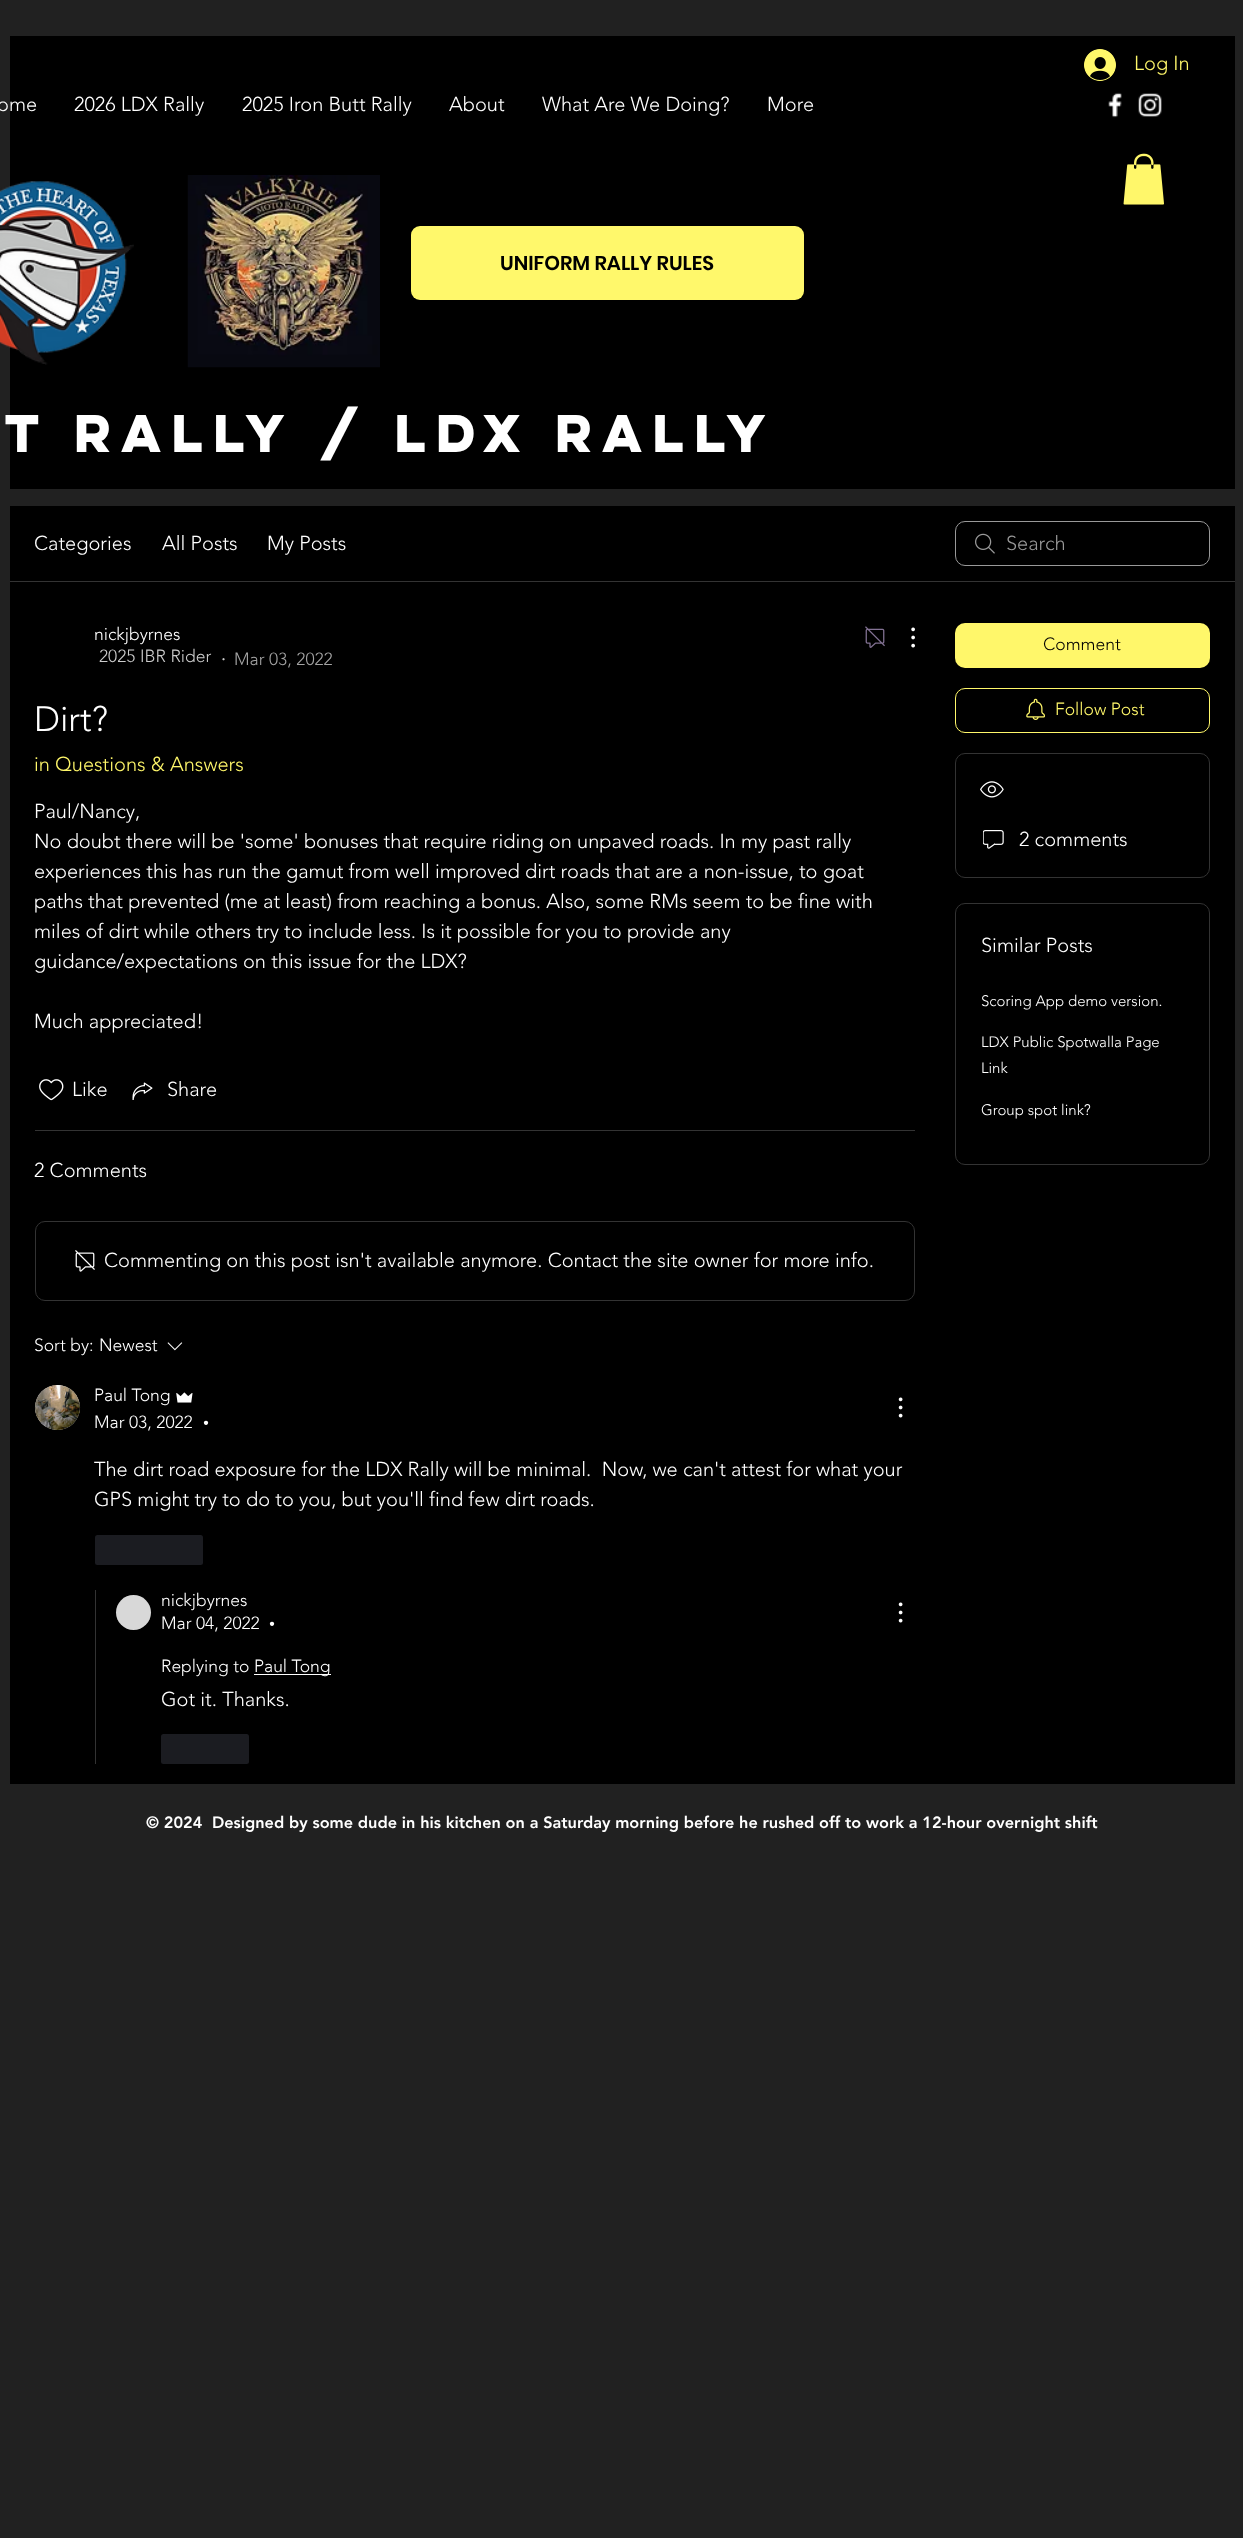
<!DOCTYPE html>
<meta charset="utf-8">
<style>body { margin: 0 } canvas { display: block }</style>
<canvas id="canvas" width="1243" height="2538"></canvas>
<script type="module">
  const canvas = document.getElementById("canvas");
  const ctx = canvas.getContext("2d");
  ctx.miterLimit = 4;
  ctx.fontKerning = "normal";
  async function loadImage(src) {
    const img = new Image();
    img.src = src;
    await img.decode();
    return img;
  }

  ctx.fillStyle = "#212121";
  ctx.fillRect(0, 0, 1243, 2538);
  ctx.fillStyle = "#000000";
  ctx.fillRect(10, 36, 1225, 453);
  ctx.drawImage(await loadImage("img1.png"), 1084, 49, 32, 32);
  ctx.font = "300 20px 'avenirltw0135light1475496'";
  ctx.fillStyle = "#fff76a";
  ctx.fillText("Log In", 1134, 70);
  ctx.fillStyle = "#ffffff";
  ctx.fillText("ome", -3, 111);
  ctx.fillText("2026 LDX Rally", 74, 111);
  ctx.fillText("2025 Iron Butt Rally", 242, 111);
  ctx.fillText("About", 449, 111);
  ctx.fillText("What Are We Doing?", 542, 111);
  ctx.fillText("More", 767, 111);
  ctx.drawImage(await loadImage("img2.png"), 1108, 92, 14, 26);
  ctx.drawImage(await loadImage("img3.png"), 1138, 93, 24, 24);
  ctx.drawImage(await loadImage("img4.png"), 0, 181, 134, 184);
  ctx.drawImage(await loadImage("img5.png"), 187, 175, 193, 193);
  ctx.fillStyle = "#fff86b";
  ctx.beginPath();
  ctx.roundRect(411, 226, 393, 74, 9);
  ctx.fill();
  ctx.font = "600 20px Poppins";
  ctx.fillStyle = "#000000";
  ctx.fillText("UNIFORM RALLY RULES", 500, 270);
  ctx.drawImage(await loadImage("img6.png"), 1123, 153, 41, 52);
  ctx.font = "bold 47.5px 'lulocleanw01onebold'";
  ctx.fillStyle = "#ffffff";
  ctx.fillText("T RALLY / LDX RALLY", 5, 452);
  ctx.fillStyle = "#000000";
  ctx.fillRect(10, 506, 1225, 1278);
  ctx.fillStyle = "#333333";
  ctx.fillRect(10, 581, 1225, 1);
  ctx.font = "300 20px 'avenirltw0135light1475496'";
  ctx.fillStyle = "#ffffff";
  ctx.fillText("Categories", 34, 550);
  ctx.fillText("All Posts", 162, 550);
  ctx.fillText("My Posts", 267, 550);
  ctx.drawImage(await loadImage("img7.png"), 975, 533, 20, 21);
  ctx.beginPath();
  ctx.roundRect(955.5, 521.5, 254, 44, 9.5);
  ctx.strokeStyle = "#999999";
  ctx.stroke();
  ctx.fillStyle = "#999999";
  ctx.fillText("Search", 1006, 550);
  ctx.font = "300 17.5px 'avenirltw0135light1475496'";
  ctx.fillStyle = "#ffffff";
  ctx.fillText("nickjbyrnes", 94, 640);
  ctx.fillStyle = "#cccccc";
  ctx.fillText("2025 IBR Rider", 99, 662);
  ctx.font = "bold 17.5px 'avenirltw0135light1475496'";
  ctx.fillText("·", 221, 665);
  ctx.font = "300 17.5px 'avenirltw0135light1475496'";
  ctx.fillStyle = "#a3a3a3";
  ctx.fillText("Mar 03, 2022", 234, 665);
  ctx.drawImage(await loadImage("img8.png"), 865, 626, 20, 22);
  ctx.drawImage(await loadImage("img9.png"), 911, 627, 4, 21);
  ctx.font = "300 35px 'avenirltw0135light1475496'";
  ctx.fillStyle = "#ffffff";
  ctx.fillText("Dirt?", 34, 731);
  ctx.font = "300 20px 'avenirltw0135light1475496'";
  ctx.fillStyle = "#fff76a";
  ctx.fillText("in Questions & Answers", 34, 771);
  ctx.fillStyle = "#ffffff";
  ctx.fillText("Paul/Nancy,", 34, 818);
  ctx.fillText("No doubt there will be 'some' bonuses that require riding on unpaved roads. In my past rally", 34, 848);
  ctx.fillText("experiences this has run the gamut from well improved dirt roads that are a non-issue, to goat", 34, 878);
  ctx.fillText("paths that prevented (me at least) from reaching a bonus. Also, some RMs seem to be fine with", 34, 908);
  ctx.fillText("miles of dirt while others try to include less. Is it possible for you to provide any", 34, 938);
  ctx.fillText("guidance/expectations on this issue for the LDX?", 34, 968);
  ctx.fillText("Much appreciated!", 34, 1028);
  ctx.drawImage(await loadImage("img10.png"), 39, 1079, 25, 22);
  ctx.fillText("Like", 72, 1096);
  ctx.drawImage(await loadImage("img11.png"), 132, 1082, 21, 18);
  ctx.fillText("Share", 167, 1096);
  ctx.fillStyle = "#333333";
  ctx.fillRect(35, 1130, 880, 1);
  ctx.fillStyle = "#ffffff";
  ctx.fillText("2 Comments", 34, 1177);
  ctx.beginPath();
  ctx.roundRect(35.5, 1221.5, 879, 79, 9.5);
  ctx.strokeStyle = "#333333";
  ctx.stroke();
  ctx.drawImage(await loadImage("img12.png"), 75, 1250, 20, 22);
  ctx.fillText("Commenting on this post isn't available anymore. Contact the site owner for more info.", 104, 1267);
  ctx.font = "300 17.5px 'avenirltw0135light1475496'";
  ctx.fillText("Sort by:", 34, 1351);
  ctx.fillText("Newest", 99, 1351);
  ctx.drawImage(await loadImage("img13.png"), 167, 1342, 16, 9);
  ctx.fillStyle = "#d8d8d8";
  ctx.beginPath();
  ctx.arc(57.5, 1407.5, 22.5, 0, Math.PI * 2);
  ctx.fill();
  ctx.drawImage(await loadImage("img14.png"), 35, 1385, 45, 45);
  ctx.fillStyle = "#ffffff";
  ctx.fillText("Paul Tong", 94, 1401);
  ctx.drawImage(await loadImage("img15.png"), 176, 1392, 17, 11);
  ctx.fillText("Mar 03, 2022", 94, 1428);
  ctx.font = "300 12px 'avenirltw0135light1475496'";
  ctx.fillText("•", 203, 1427);
  ctx.drawImage(await loadImage("img16.png"), 898, 1397, 5, 21);
  ctx.font = "300 20px 'avenirltw0135light1475496'";
  ctx.fillText("The dirt road exposure for the LDX Rally will be minimal.  Now, we can't attest for what your", 94, 1476);
  ctx.fillText("GPS might try to do to you, but you'll find few dirt roads.", 94, 1506);
  ctx.fillStyle = "#1b1c21";
  ctx.beginPath();
  ctx.roundRect(95, 1535, 108, 30, 2.5);
  ctx.fill();
  ctx.fillStyle = "#333333";
  ctx.fillRect(95, 1590, 1, 174);
  ctx.fillStyle = "#d8d8d8";
  ctx.beginPath();
  ctx.arc(133.5, 1612.5, 17.5, 0, Math.PI * 2);
  ctx.fill();
  ctx.font = "300 17.5px 'avenirltw0135light1475496'";
  ctx.fillStyle = "#ffffff";
  ctx.fillText("nickjbyrnes", 161, 1606);
  ctx.fillText("Mar 04, 2022", 161, 1629);
  ctx.font = "300 12px 'avenirltw0135light1475496'";
  ctx.fillText("•", 269, 1628);
  ctx.drawImage(await loadImage("img16.png"), 898, 1602, 5, 21);
  ctx.font = "300 17.5px 'avenirltw0135light1475496'";
  ctx.fillText("Replying to", 161, 1672);
  ctx.fillRect(254, 1674, 77, 1);
  ctx.fillText("Paul Tong", 254, 1672);
  ctx.font = "300 20px 'avenirltw0135light1475496'";
  ctx.fillText("Got it. Thanks.", 161, 1706);
  ctx.fillStyle = "#1b1c21";
  ctx.beginPath();
  ctx.roundRect(161, 1734, 88, 30, 2.5);
  ctx.fill();
  ctx.fillStyle = "#fff76a";
  ctx.beginPath();
  ctx.roundRect(955, 623, 255, 45, 10);
  ctx.fill();
  ctx.font = "300 17.5px 'avenirltw0135light1475496'";
  ctx.fillStyle = "#000000";
  ctx.fillText("Comment", 1043, 650);
  ctx.beginPath();
  ctx.roundRect(955.5, 688.5, 254, 44, 9.5);
  ctx.strokeStyle = "#fff76a";
  ctx.stroke();
  ctx.drawImage(await loadImage("img17.png"), 1026, 698, 19, 22);
  ctx.fillStyle = "#fff76a";
  ctx.fillText("Follow Post", 1055, 715);
  ctx.beginPath();
  ctx.roundRect(955.5, 753.5, 254, 124, 9.5);
  ctx.strokeStyle = "#333333";
  ctx.stroke();
  ctx.drawImage(await loadImage("img18.png"), 980, 781, 24, 17);
  ctx.drawImage(await loadImage("img19.png"), 983, 830, 21, 19);
  ctx.font = "300 20px 'avenirltw0135light1475496'";
  ctx.fillStyle = "#ffffff";
  ctx.fillText("2 comments", 1019, 846);
  ctx.beginPath();
  ctx.roundRect(955.5, 903.5, 254, 261, 9.5);
  ctx.stroke();
  ctx.fillText("Similar Posts", 981, 952);
  ctx.font = "300 15px 'avenirltw0135light1475496'";
  ctx.fillText("Scoring App demo version.", 981, 1006);
  ctx.fillText("LDX Public Spotwalla Page", 981, 1047);
  ctx.fillText("Link", 981, 1073);
  ctx.fillText("Group spot link?", 981, 1115);
  ctx.font = "900 16.25px 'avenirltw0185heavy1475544'";
  ctx.fillText("© 2024  Designed by some dude in his kitchen on a Saturday morning before he rushed off to work a 12-hour overnight shift", 146, 1828);
</script>
